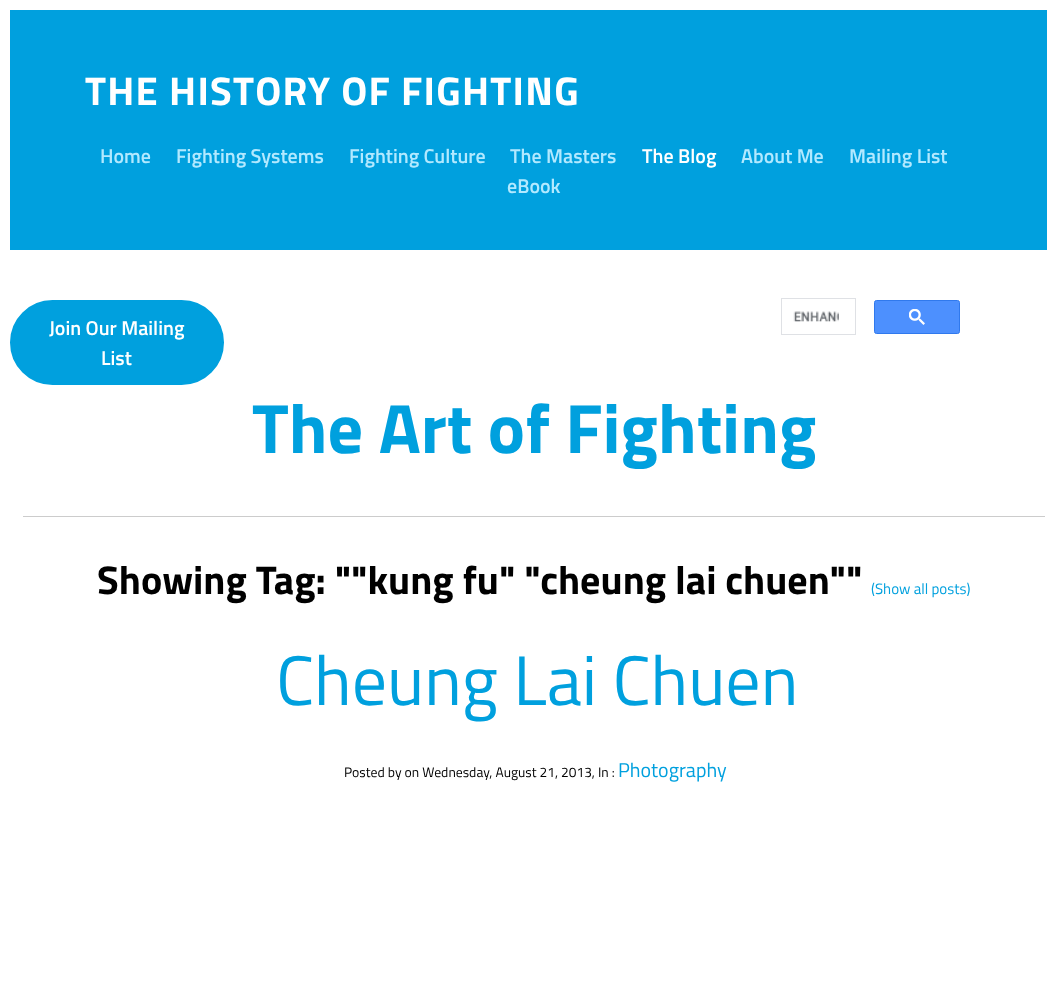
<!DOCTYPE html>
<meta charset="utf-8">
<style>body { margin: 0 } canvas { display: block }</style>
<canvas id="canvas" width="1047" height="981"></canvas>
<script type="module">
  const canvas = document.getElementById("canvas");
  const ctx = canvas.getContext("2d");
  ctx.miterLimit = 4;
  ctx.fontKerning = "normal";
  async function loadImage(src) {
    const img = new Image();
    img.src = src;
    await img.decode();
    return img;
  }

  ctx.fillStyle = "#ffffff";
  ctx.fillRect(0, 0, 1047, 981);
  ctx.fillStyle = "#00a0de";
  ctx.fillRect(10, 10, 1037, 240);
  ctx.letterSpacing = "1.25px";
  ctx.font = "bold 40px Titillium Web";
  ctx.fillStyle = "#ffffff";
  ctx.fillText("THE HISTORY OF FIGHTING", 85, 105);
  ctx.letterSpacing = "0px";
  ctx.font = "600 20px Titillium Web";
  ctx.fillStyle = "#b2e9ff";
  ctx.fillText("Home", 100, 163);
  ctx.fillText("Fighting Systems", 176, 163);
  ctx.fillText("Fighting Culture", 349, 163);
  ctx.fillText("The Masters", 510, 163);
  ctx.fillStyle = "#ffffff";
  ctx.fillText("The Blog", 642, 163);
  ctx.fillStyle = "#b2e9ff";
  ctx.fillText("About Me", 741, 163);
  ctx.fillText("Mailing List", 849, 163);
  ctx.fillText("eBook", 507, 193);
  ctx.fillStyle = "#00a0de";
  ctx.beginPath();
  ctx.roundRect(11.5, 301.5, 211, 82, 41);
  ctx.fill();
  ctx.strokeStyle = "#00a0de";
  ctx.lineWidth = 3;
  ctx.stroke();
  ctx.fillStyle = "#ffffff";
  ctx.fillText("Join Our Mailing", 49, 335);
  ctx.fillText("List", 101, 365);
  ctx.strokeStyle = "#dfe1e5";
  ctx.lineWidth = 1;
  ctx.strokeRect(781.5, 298.5, 74, 36);
  ctx.drawImage(await loadImage("img1.png"), 793, 311, 46, 11);
  ctx.fillStyle = "#4d90fe";
  ctx.beginPath();
  ctx.roundRect(874.5, 300.5, 85, 33, 2);
  ctx.fill();
  ctx.strokeStyle = "#3079ed";
  ctx.stroke();
  ctx.drawImage(await loadImage("img2.png"), 909, 309, 16, 16);
  ctx.font = "bold 70px Titillium Web";
  ctx.fillStyle = "#00a0de";
  ctx.fillText("The Art of Fighting", 252, 453);
  ctx.fillStyle = "#cccccc";
  ctx.fillRect(23, 516, 1022, 1);
  ctx.font = "bold 40px Titillium Web";
  ctx.fillStyle = "#000000";
  ctx.fillText("Showing Tag: \"\"kung fu\" \"cheung lai chuen\"\"", 97, 594);
  ctx.font = "15px Titillium Web";
  ctx.fillStyle = "#00a0de";
  ctx.fillText("(Show all posts)", 871, 594);
  ctx.font = "70px Titillium Web";
  ctx.fillText("Cheung Lai Chuen", 276, 705);
  ctx.font = "13.75px Titillium Web";
  ctx.fillStyle = "#000000";
  ctx.fillText("Posted by on Wednesday, August 21, 2013, In :", 344, 777);
  ctx.font = "20px Titillium Web";
  ctx.fillStyle = "#00a0de";
  ctx.fillText("Photography", 618, 777);
</script>
